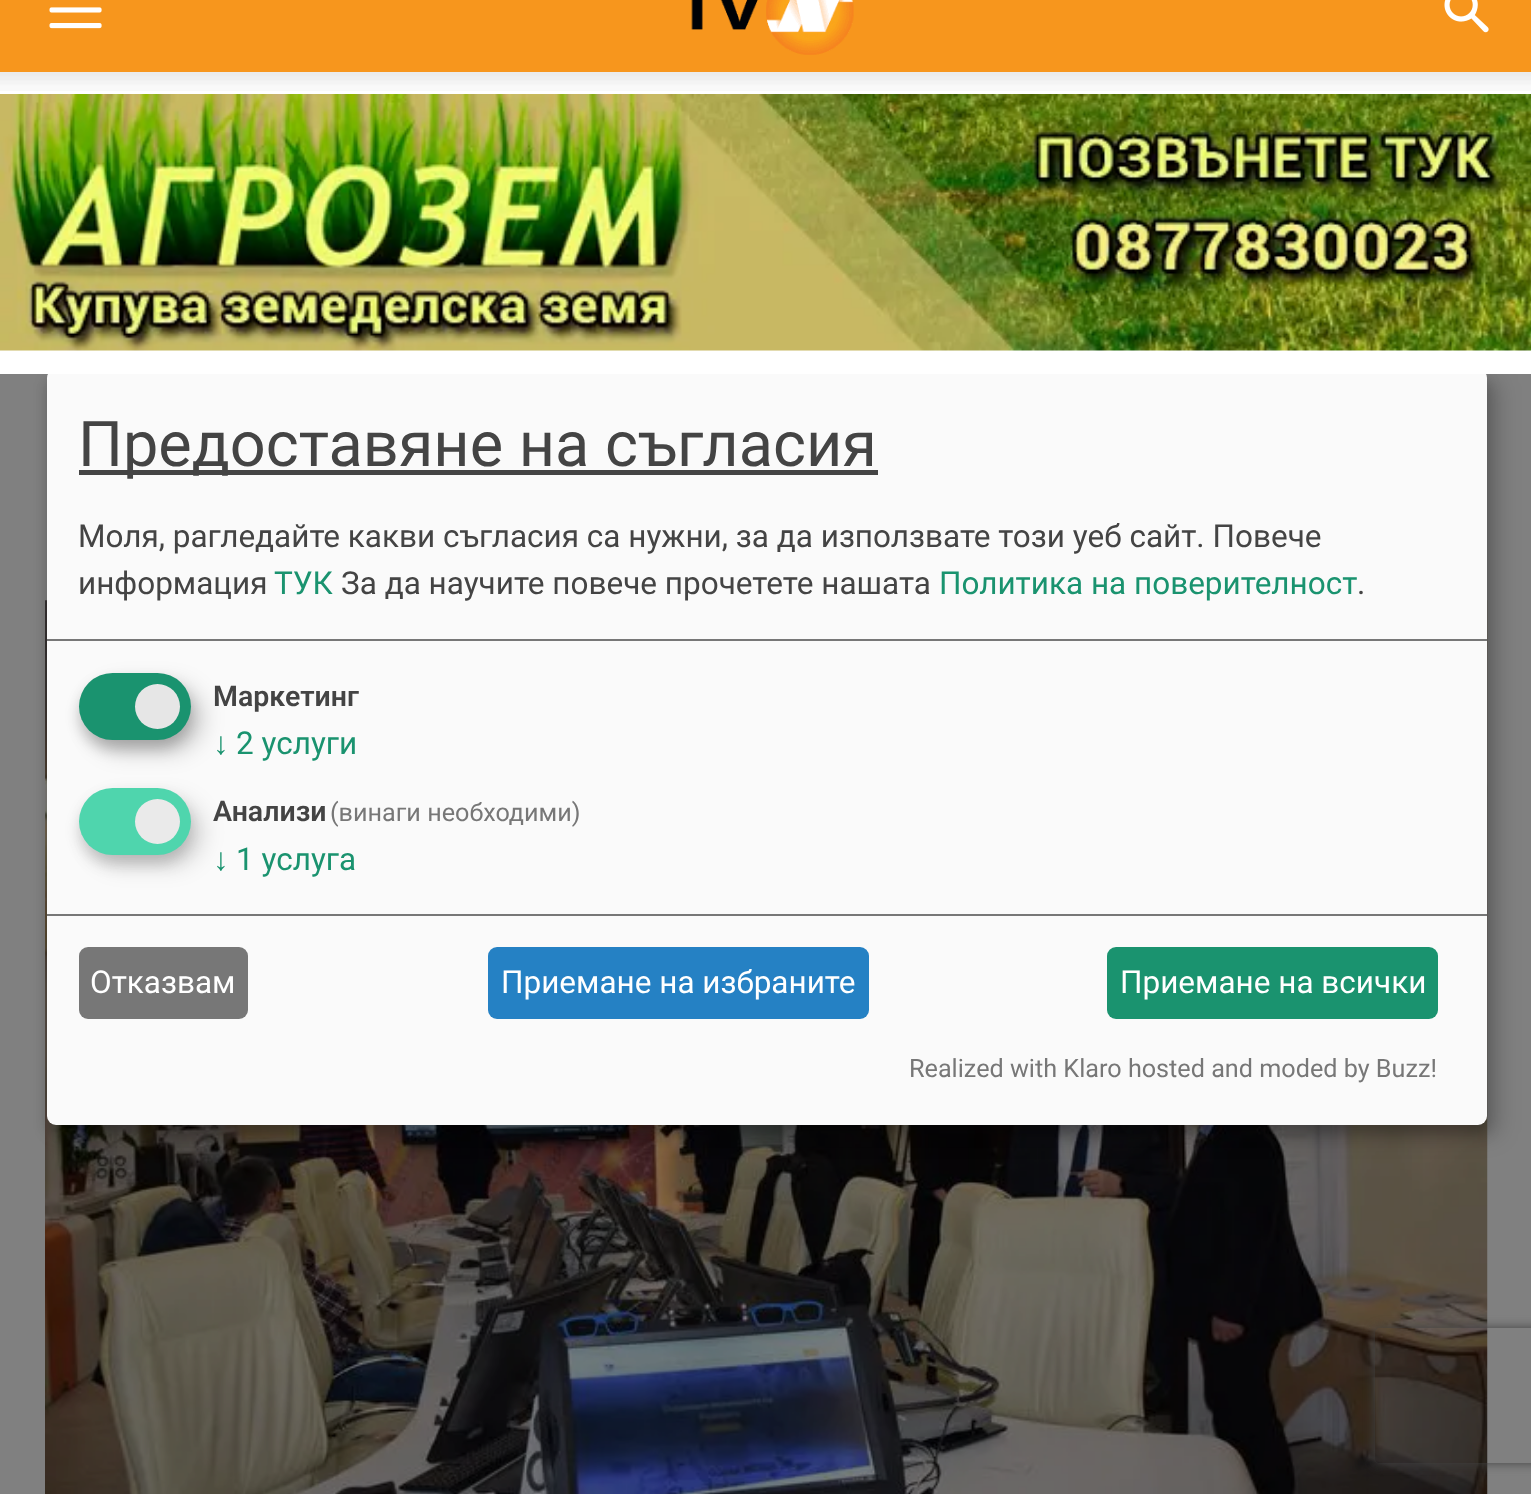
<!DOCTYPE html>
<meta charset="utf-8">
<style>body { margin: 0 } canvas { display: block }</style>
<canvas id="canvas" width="1531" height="1494"></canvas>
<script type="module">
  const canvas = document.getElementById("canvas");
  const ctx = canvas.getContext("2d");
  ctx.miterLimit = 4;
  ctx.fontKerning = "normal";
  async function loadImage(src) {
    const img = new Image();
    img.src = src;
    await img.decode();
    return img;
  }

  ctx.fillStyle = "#808080";
  ctx.fillRect(0, 0, 1531, 1494);
  ctx.fillStyle = "#f7961d";
  ctx.fillRect(0, 0, 1531, 72);
  ctx.drawImage(await loadImage("img1.png"), 49, 7, 53, 22);
  ctx.drawImage(await loadImage("img2.png"), 691, 0, 163, 55);
  ctx.drawImage(await loadImage("img3.png"), 1444, 0, 45, 33);
  ctx.drawImage(await loadImage("img6.png"), 45, 600, 1443, 894);
  ctx.fillStyle = "rgba(0, 0, 0, 0.19)";
  ctx.filter = "blur(11px)";
  ctx.beginPath();
  ctx.roundRect(59, 380, 1440, 756, 9);
  ctx.fill();
  ctx.filter = "none";
  ctx.fillStyle = "rgba(0, 0, 0, 0.2)";
  ctx.filter = "blur(7px)";
  ctx.beginPath();
  ctx.roundRect(47, 378, 1440, 756, 9);
  ctx.fill();
  ctx.filter = "none";
  ctx.fillStyle = "#fafafa";
  ctx.beginPath();
  ctx.roundRect(47, 369, 1440, 756, 9);
  ctx.fill();
  ctx.fillStyle = "#ffffff";
  ctx.fillRect(0, 72, 1531, 302);
  ctx.drawImage(await loadImage("img4.png"), 0, 72, 1531, 19);
  ctx.drawImage(await loadImage("img5.png"), 0, 94, 1531, 257);
  ctx.fillStyle = "#777777";
  ctx.fillRect(47, 639, 1440, 2);
  ctx.fillStyle = "#444444";
  ctx.fillRect(79, 470, 799, 5);
  ctx.font = "63px Roboto";
  ctx.fillText("Предоставяне на съгласия", 78, 466);
  ctx.font = "31.5px Roboto";
  ctx.fillText("Моля, рагледайте какви съгласия са нужни, за да използвате този уеб сайт. Повече", 78, 547);
  ctx.fillText("информация", 78, 594);
  ctx.fillStyle = "#1a936f";
  ctx.fillText("ТУК", 274, 594);
  ctx.fillStyle = "#444444";
  ctx.fillText("За да научите повече прочетете нашата", 341, 594);
  ctx.fillStyle = "#1a936f";
  ctx.fillText("Политика на поверителност", 939, 594);
  ctx.fillStyle = "#444444";
  ctx.fillText(".", 1357, 594);
  ctx.fillStyle = "rgba(0, 0, 0, 0.19)";
  ctx.filter = "blur(11px)";
  ctx.beginPath();
  ctx.roundRect(90, 684, 113, 68, 34);
  ctx.fill();
  ctx.filter = "none";
  ctx.fillStyle = "rgba(0, 0, 0, 0.2)";
  ctx.filter = "blur(7px)";
  ctx.beginPath();
  ctx.roundRect(79, 682, 112, 67, 33.5);
  ctx.fill();
  ctx.filter = "none";
  ctx.fillStyle = "#1a936f";
  ctx.beginPath();
  ctx.roundRect(79, 673, 112, 67, 33.5);
  ctx.fill();
  ctx.fillStyle = "#e6e6e6";
  ctx.beginPath();
  ctx.arc(157.5, 706.5, 22.5, 0, Math.PI * 2);
  ctx.fill();
  ctx.font = "600 28.5px Roboto";
  ctx.fillStyle = "#444444";
  ctx.fillText("Маркетинг", 213, 706);
  ctx.font = "31.5px Liberation Sans";
  ctx.fillStyle = "#1a936f";
  ctx.fillText("↓", 213, 754);
  ctx.font = "31.5px Roboto";
  ctx.fillText("2 услуги", 236, 754);
  ctx.fillStyle = "rgba(0, 0, 0, 0.15)";
  ctx.filter = "blur(11px)";
  ctx.beginPath();
  ctx.roundRect(90, 799, 113, 67, 33.5);
  ctx.fill();
  ctx.filter = "none";
  ctx.fillStyle = "rgba(50, 50, 50, 0.2)";
  ctx.filter = "blur(7px)";
  ctx.beginPath();
  ctx.roundRect(79, 797, 112, 67, 33.5);
  ctx.fill();
  ctx.filter = "none";
  ctx.fillStyle = "#4fd5ad";
  ctx.beginPath();
  ctx.roundRect(79, 788, 112, 67, 33.5);
  ctx.fill();
  ctx.fillStyle = "#eaeaea";
  ctx.beginPath();
  ctx.arc(157.5, 821.5, 22.5, 0, Math.PI * 2);
  ctx.fill();
  ctx.font = "600 28.5px Roboto";
  ctx.fillStyle = "#444444";
  ctx.fillText("Анализи", 213, 821);
  ctx.font = "25.2px Roboto";
  ctx.fillStyle = "#777777";
  ctx.fillText("(винаги необходими)", 330, 821);
  ctx.font = "31.5px Liberation Sans";
  ctx.fillStyle = "#1a936f";
  ctx.fillText("↓", 213, 870);
  ctx.font = "31.5px Roboto";
  ctx.fillText("1 услуга", 236, 870);
  ctx.fillStyle = "#777777";
  ctx.fillRect(47, 914, 1440, 2);
  ctx.beginPath();
  ctx.roundRect(79, 947, 169, 72, 9);
  ctx.fill();
  ctx.fillStyle = "#ffffff";
  ctx.fillText("Отказвам", 90, 993);
  ctx.fillStyle = "#2581c4";
  ctx.beginPath();
  ctx.roundRect(488, 947, 381, 72, 9);
  ctx.fill();
  ctx.fillStyle = "#ffffff";
  ctx.fillText("Приемане на избраните", 501, 993);
  ctx.fillStyle = "#1a936f";
  ctx.beginPath();
  ctx.roundRect(1107, 947, 331, 72, 9);
  ctx.fill();
  ctx.fillStyle = "#ffffff";
  ctx.fillText("Приемане на всички", 1120, 993);
  ctx.font = "25.2px Roboto";
  ctx.fillStyle = "#777777";
  ctx.fillText("Realized with Klaro hosted and moded by Buzz!", 909, 1077);
  ctx.save();
  ctx.beginPath();
  ctx.moveTo(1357, 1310);
  ctx.lineTo(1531, 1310);
  ctx.lineTo(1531, 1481);
  ctx.lineTo(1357, 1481);
  ctx.closePath();
  ctx.moveTo(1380, 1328);
  ctx.lineTo(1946, 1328);
  ctx.bezierCurveTo(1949, 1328, 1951, 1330, 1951, 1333);
  ctx.lineTo(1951, 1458);
  ctx.bezierCurveTo(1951, 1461, 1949, 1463, 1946, 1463);
  ctx.lineTo(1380, 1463);
  ctx.bezierCurveTo(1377, 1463, 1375, 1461, 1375, 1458);
  ctx.lineTo(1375, 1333);
  ctx.bezierCurveTo(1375, 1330, 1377, 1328, 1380, 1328);
  ctx.closePath();
  ctx.clip("evenodd");
  ctx.fillStyle = "#404040";
  ctx.filter = "blur(5.5px)";
  ctx.beginPath();
  ctx.roundRect(1375, 1328, 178, 135, 5);
  ctx.fill();
  ctx.filter = "none";
  ctx.restore();
</script>
